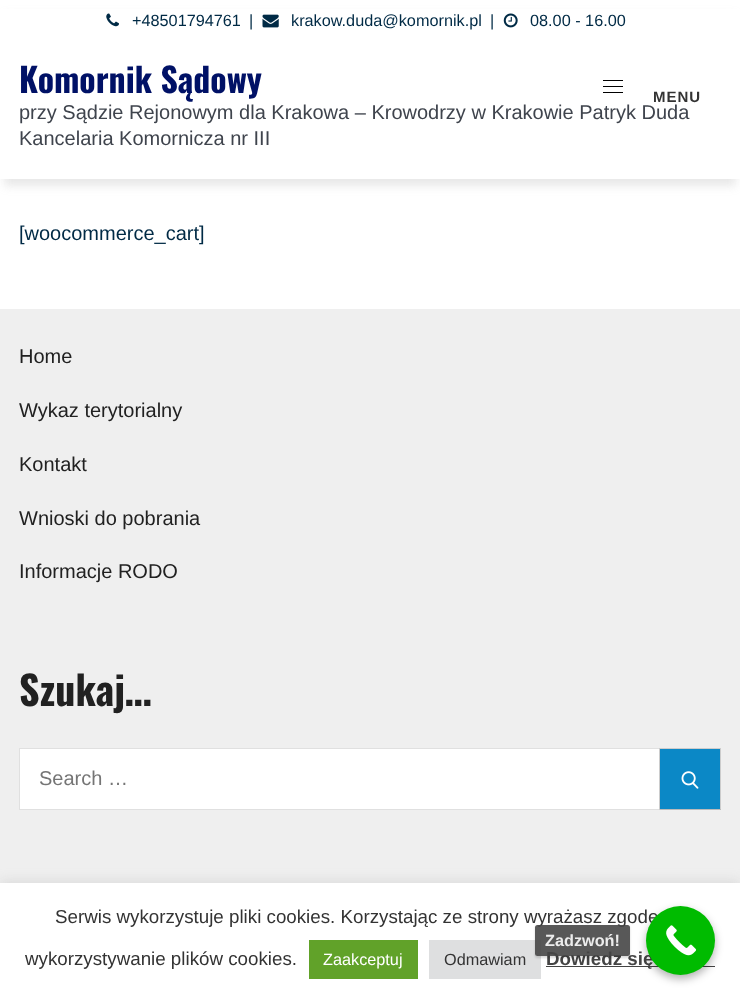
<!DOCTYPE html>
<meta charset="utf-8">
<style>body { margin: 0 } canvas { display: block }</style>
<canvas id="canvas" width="740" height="993"></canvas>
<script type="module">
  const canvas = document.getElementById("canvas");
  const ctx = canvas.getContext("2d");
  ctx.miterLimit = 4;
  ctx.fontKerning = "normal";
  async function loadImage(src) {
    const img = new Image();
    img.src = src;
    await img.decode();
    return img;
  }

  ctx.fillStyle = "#ffffff";
  ctx.fillRect(0, 0, 740, 993);
  ctx.fillStyle = "rgba(130, 130, 130, 0.18)";
  ctx.filter = "blur(5px)";
  ctx.beginPath();
  ctx.rect(4, 15, 732, 171);
  ctx.fill();
  ctx.filter = "none";
  ctx.fillStyle = "#ffffff";
  ctx.fillRect(0, 9, 740, 170);
  ctx.drawImage(await loadImage("img1.png"), 106, 13, 13, 14);
  ctx.font = "16.25px Liberation Sans";
  ctx.fillStyle = "#002a45";
  ctx.fillText("+48501794761", 132, 26);
  ctx.fillText("|", 249, 26);
  ctx.drawImage(await loadImage("img2.png"), 262, 14, 17, 14);
  ctx.fillText("krakow.duda@komornik.pl", 291, 26);
  ctx.fillText("|", 490, 26);
  ctx.drawImage(await loadImage("img3.png"), 503, 13, 15, 15);
  ctx.fillText("08.00 - 16.00", 530, 26);
  ctx.font = "bold 33.75px Oswald";
  ctx.fillStyle = "#001166";
  ctx.fillText("Komornik Sądowy", 19, 93);
  ctx.font = "20px Liberation Sans";
  ctx.fillStyle = "#3f444d";
  ctx.fillText("przy Sądzie Rejonowym dla Krakowa – Krowodrzy w Krakowie Patryk Duda", 19, 119);
  ctx.fillText("Kancelaria Komornicza nr III", 19, 145);
  ctx.fillStyle = "#000000";
  ctx.fillRect(603, 80, 20, 1);
  ctx.fillRect(603, 86, 20, 1);
  ctx.fillRect(603, 92, 20, 1);
  ctx.letterSpacing = "1px";
  ctx.font = "bold 15px Liberation Sans";
  ctx.fillStyle = "#333333";
  ctx.fillText("MENU", 653, 102);
  ctx.letterSpacing = "0px";
  ctx.font = "20px Liberation Sans";
  ctx.fillStyle = "#002a45";
  ctx.fillText("[woocommerce_cart]", 19, 240);
  ctx.fillStyle = "#efefef";
  ctx.fillRect(0, 309, 740, 574);
  ctx.fillStyle = "#212121";
  ctx.fillText("Home", 19, 363);
  ctx.fillText("Wykaz terytorialny", 19, 417);
  ctx.fillText("Kontakt", 19, 471);
  ctx.fillText("Wnioski do pobrania", 19, 525);
  ctx.fillText("Informacje RODO", 19, 578);
  ctx.font = "bold 40px Oswald";
  ctx.fillText("Szukaj…", 19, 706);
  ctx.fillStyle = "#ffffff";
  ctx.fillRect(20, 749, 639, 60);
  ctx.strokeStyle = "#e0e0e0";
  ctx.strokeRect(19.5, 748.5, 701, 61);
  ctx.font = "20px Liberation Sans";
  ctx.fillStyle = "#757575";
  ctx.fillText("Search …", 39, 785);
  ctx.fillStyle = "#0b88c6";
  ctx.fillRect(660, 749, 60, 60);
  ctx.fillStyle = "#cccccc";
  ctx.fillRect(659, 748, 62, 1);
  ctx.fillRect(720, 748, 1, 62);
  ctx.fillStyle = "#bbbbbb";
  ctx.fillRect(659, 809, 62, 1);
  ctx.fillStyle = "#cccccc";
  ctx.fillRect(659, 748, 1, 62);
  ctx.drawImage(await loadImage("img4.png"), 681, 771, 18, 18);
  ctx.fillStyle = "rgba(172, 171, 171, 0.3)";
  ctx.filter = "blur(6px)";
  ctx.beginPath();
  ctx.rect(0, 881, 740, 112);
  ctx.fill();
  ctx.filter = "none";
  ctx.fillStyle = "#ffffff";
  ctx.fillRect(0, 883, 740, 110);
  ctx.font = "18.75px Liberation Sans";
  ctx.fillStyle = "#333333";
  ctx.fillText("Serwis wykorzystuje pliki cookies. Korzystając ze strony wyrażasz zgodę", 55, 923);
  ctx.fillText("wykorzystywanie plików cookies.", 25, 965);
  ctx.fillStyle = "#61a229";
  ctx.fillRect(309, 940, 109, 39);
  ctx.font = "16.25px Liberation Sans";
  ctx.fillStyle = "#ffffff";
  ctx.fillText("Zaakceptuj", 323, 965);
  ctx.fillStyle = "#dedfe0";
  ctx.fillRect(429, 940, 112, 39);
  ctx.fillStyle = "#333333";
  ctx.fillText("Odmawiam", 444, 965);
  ctx.fillStyle = "#444444";
  ctx.fillRect(546, 966, 169, 1);
  ctx.font = "bold 18.75px Liberation Sans";
  ctx.fillText("Dowiedz się", 546, 965);
  ctx.fillStyle = "rgba(0, 0, 0, 0.3)";
  ctx.filter = "blur(4px)";
  ctx.beginPath();
  ctx.roundRect(646, 910, 69, 69, 34.5);
  ctx.fill();
  ctx.filter = "none";
  ctx.fillStyle = "#00bb00";
  ctx.beginPath();
  ctx.arc(680.5, 940.5, 34.5, 0, Math.PI * 2);
  ctx.fill();
  ctx.drawImage(await loadImage("img5.png"), 666, 925, 31, 31);
  ctx.save();
  ctx.beginPath();
  ctx.moveTo(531, 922);
  ctx.lineTo(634, 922);
  ctx.lineTo(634, 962);
  ctx.lineTo(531, 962);
  ctx.closePath();
  ctx.moveTo(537.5, 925);
  ctx.lineTo(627.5, 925);
  ctx.bezierCurveTo(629, 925, 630, 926, 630, 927.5);
  ctx.lineTo(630, 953.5);
  ctx.bezierCurveTo(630, 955, 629, 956, 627.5, 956);
  ctx.lineTo(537.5, 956);
  ctx.bezierCurveTo(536, 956, 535, 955, 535, 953.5);
  ctx.lineTo(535, 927.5);
  ctx.bezierCurveTo(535, 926, 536, 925, 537.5, 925);
  ctx.closePath();
  ctx.clip("evenodd");
  ctx.fillStyle = "rgba(0, 0, 0, 0.15)";
  ctx.filter = "blur(1px)";
  ctx.beginPath();
  ctx.roundRect(535, 926, 95, 32, 2.5);
  ctx.fill();
  ctx.filter = "none";
  ctx.restore();
  ctx.fillStyle = "rgba(70, 70, 70, 0.9)";
  ctx.beginPath();
  ctx.roundRect(535, 925, 95, 31, 2.5);
  ctx.fill();
  ctx.font = "bold 16.25px Liberation Sans";
  ctx.fillStyle = "#ececec";
  ctx.fillText("Zadzwoń!", 545, 946);
</script>
